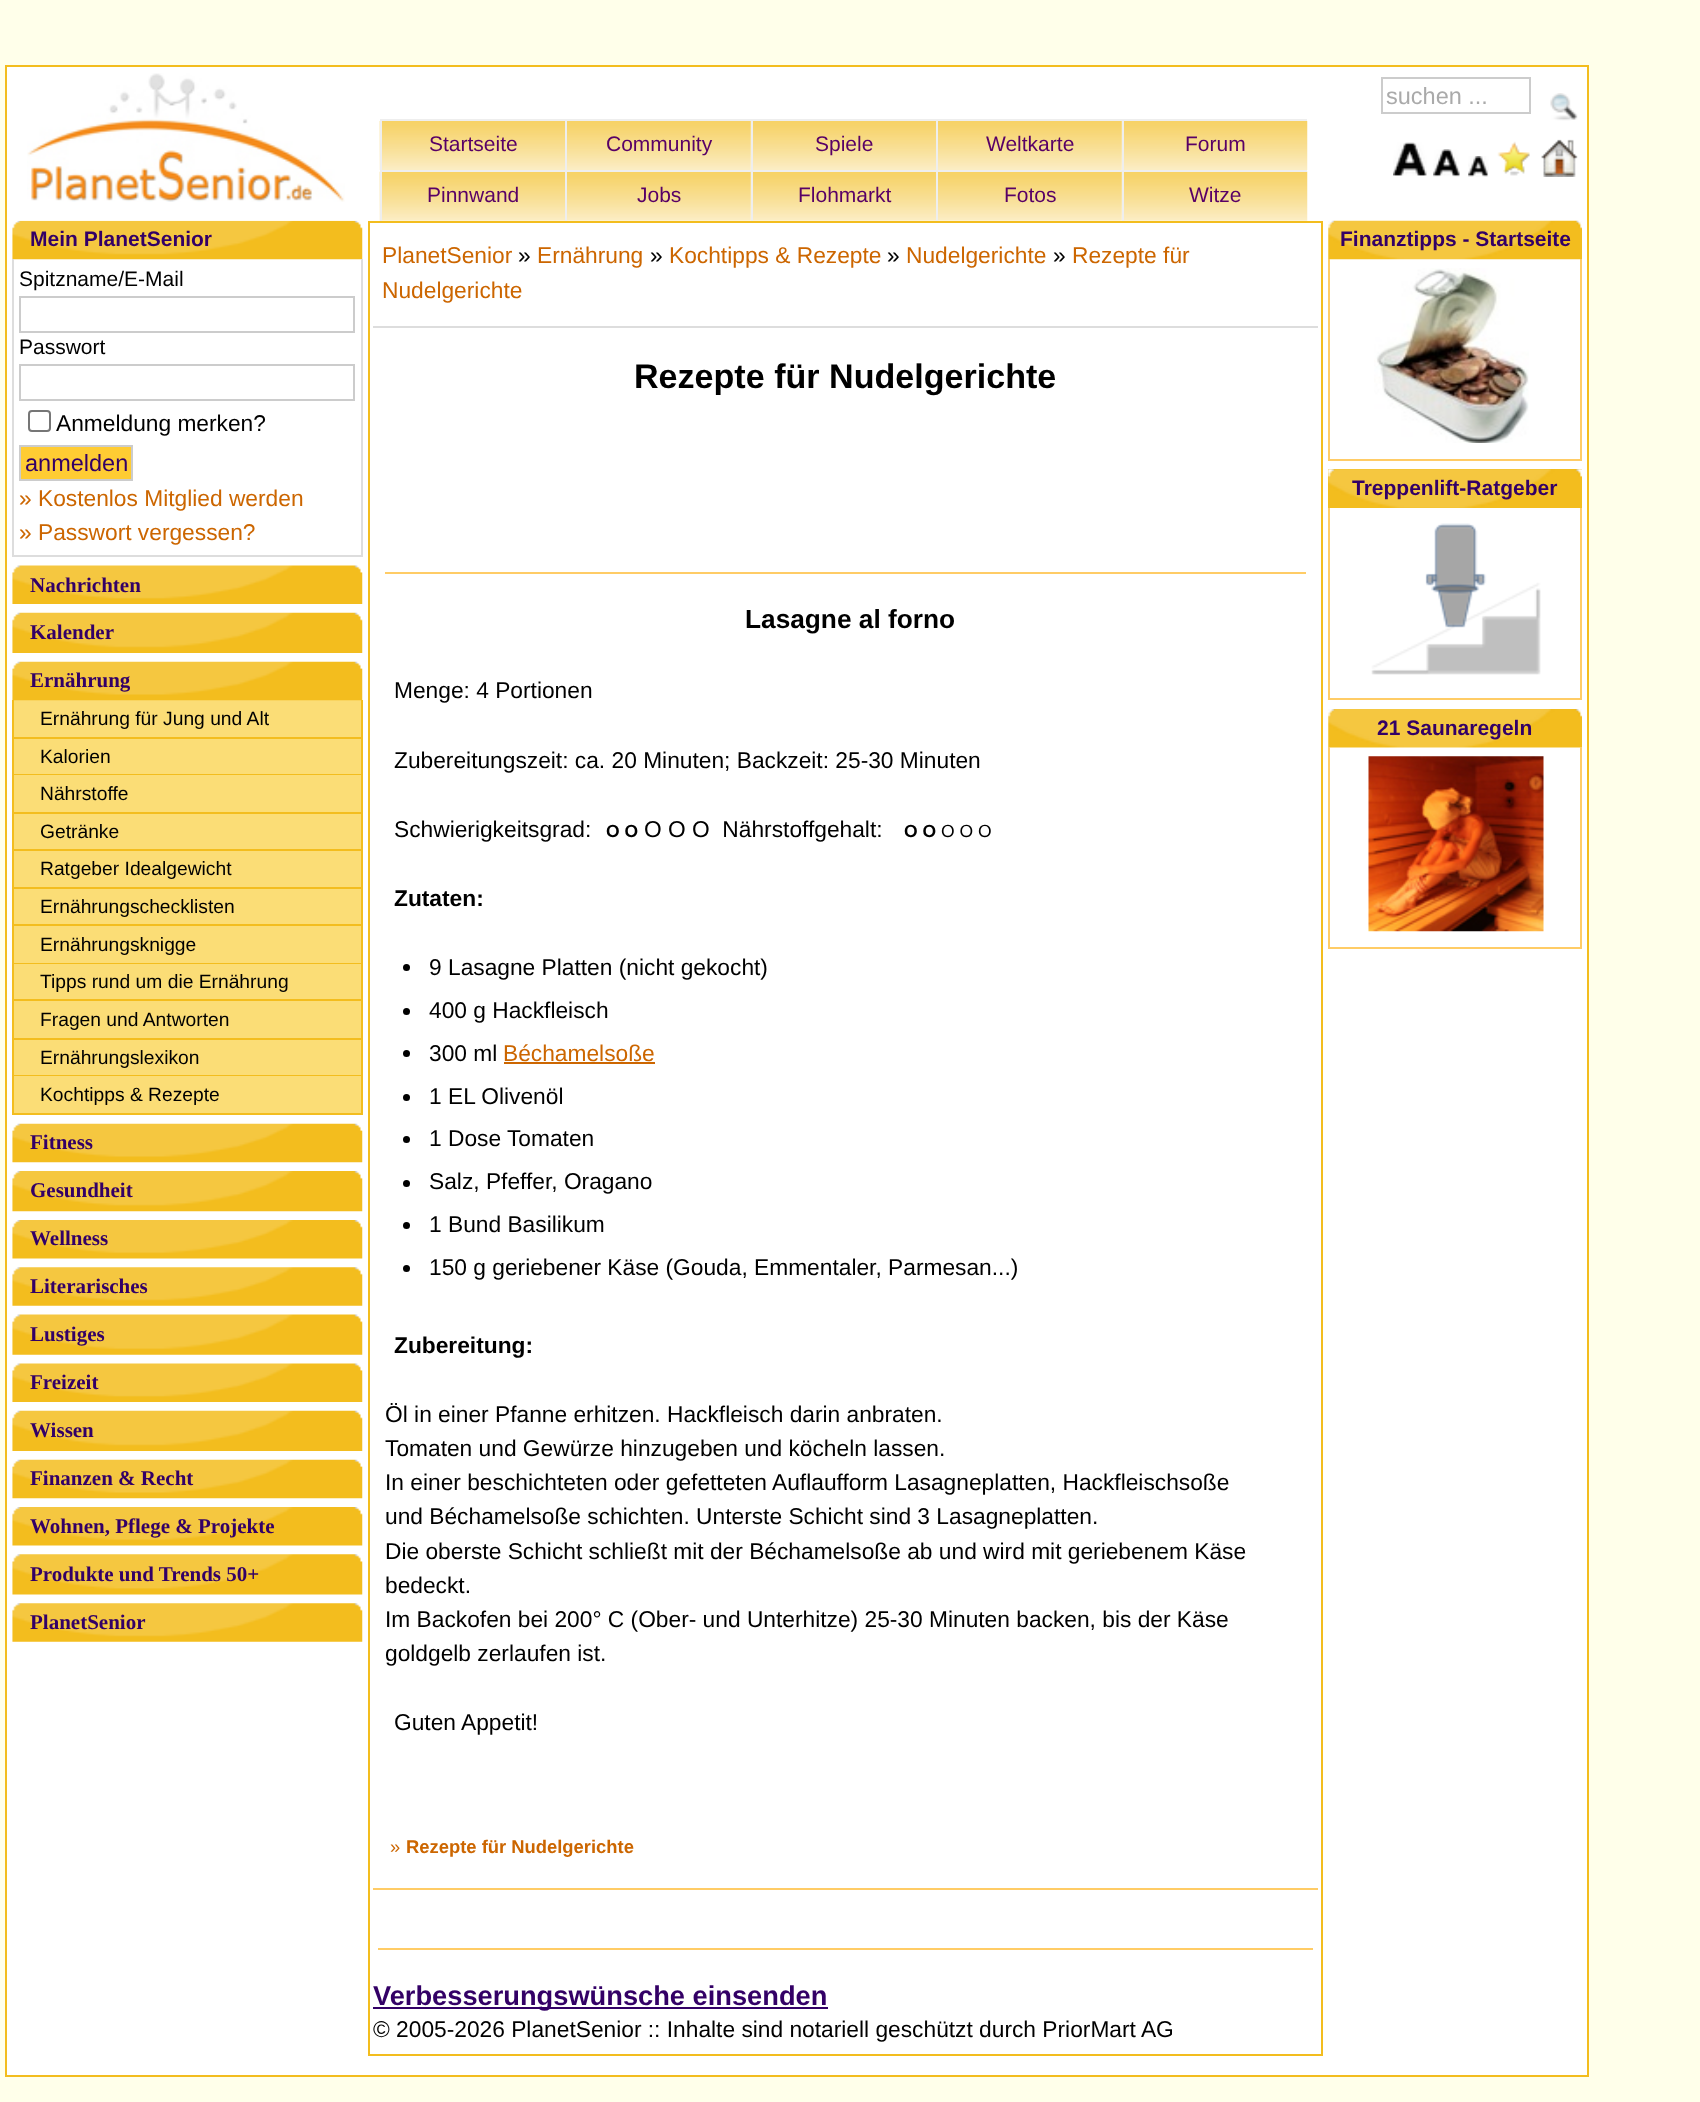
<!DOCTYPE html>
<meta charset="utf-8">
<style>body { margin: 0 } canvas { display: block }</style>
<canvas id="canvas" width="1700" height="2102"></canvas>
<script type="module">
  const canvas = document.getElementById("canvas");
  const ctx = canvas.getContext("2d");
  ctx.miterLimit = 4;
  ctx.fontKerning = "normal";
  async function loadImage(src) {
    const img = new Image();
    img.src = src;
    await img.decode();
    return img;
  }

  ctx.fillStyle = "#ffffea";
  ctx.fillRect(0, 0, 1700, 2102);
  ctx.fillStyle = "#ffffff";
  ctx.beginPath();
  ctx.rect(6, 66, 1582, 2010);
  ctx.fill();
  ctx.strokeStyle = "#f3bd1e";
  ctx.lineWidth = 2;
  ctx.stroke();
  ctx.drawImage(await loadImage("img1.png"), 27, 73, 318, 129);
  ctx.strokeStyle = "#cccccc";
  ctx.strokeRect(1382, 78, 148, 35);
  ctx.font = "23.5px Liberation Sans";
  ctx.fillStyle = "#aaaaaa";
  ctx.fillText("suchen ...", 1386, 104);
  ctx.drawImage(await loadImage("img2.png"), 1550, 93, 28, 28);
  ctx.drawImage(await loadImage("img3.png"), 379, 121, 186, 49);
  ctx.fillStyle = "#eeeeee";
  ctx.fillRect(380, 119, 927, 2);
  ctx.fillRect(380, 119, 2, 51);
  ctx.font = "21px Liberation Sans";
  ctx.fillStyle = "#580066";
  ctx.fillText("Startseite", 429, 151);
  ctx.drawImage(await loadImage("img4.png"), 567, 121, 184, 49);
  ctx.fillStyle = "#eeeeee";
  ctx.fillRect(565, 119, 2, 51);
  ctx.fillStyle = "#580066";
  ctx.fillText("Community", 606, 151);
  ctx.drawImage(await loadImage("img5.png"), 750, 121, 186, 49);
  ctx.fillStyle = "#eeeeee";
  ctx.fillRect(751, 119, 2, 51);
  ctx.fillStyle = "#580066";
  ctx.fillText("Spiele", 815, 151);
  ctx.drawImage(await loadImage("img6.png"), 938, 121, 184, 49);
  ctx.fillStyle = "#eeeeee";
  ctx.fillRect(936, 119, 2, 51);
  ctx.fillStyle = "#580066";
  ctx.fillText("Weltkarte", 986, 151);
  ctx.drawImage(await loadImage("img7.png"), 1121, 121, 187, 49);
  ctx.fillStyle = "#eeeeee";
  ctx.fillRect(1122, 119, 2, 51);
  ctx.fillStyle = "#580066";
  ctx.fillText("Forum", 1185, 151);
  ctx.drawImage(await loadImage("img8.png"), 379, 171, 186, 50);
  ctx.fillStyle = "#eeeeee";
  ctx.fillRect(380, 170, 371, 2);
  ctx.fillRect(380, 170, 2, 51);
  ctx.fillStyle = "#580066";
  ctx.fillText("Pinnwand", 427, 202);
  ctx.drawImage(await loadImage("img9.png"), 567, 172, 184, 49);
  ctx.fillStyle = "#eeeeee";
  ctx.fillRect(565, 170, 2, 51);
  ctx.fillStyle = "#580066";
  ctx.fillText("Jobs", 637, 202);
  ctx.drawImage(await loadImage("img10.png"), 750, 171, 186, 50);
  ctx.fillStyle = "#eeeeee";
  ctx.fillRect(751, 170, 371, 2);
  ctx.fillRect(751, 170, 2, 51);
  ctx.fillStyle = "#580066";
  ctx.fillText("Flohmarkt", 798, 202);
  ctx.drawImage(await loadImage("img9.png"), 938, 172, 184, 49);
  ctx.fillStyle = "#eeeeee";
  ctx.fillRect(936, 170, 2, 51);
  ctx.fillStyle = "#580066";
  ctx.fillText("Fotos", 1004, 202);
  ctx.drawImage(await loadImage("img11.png"), 1121, 171, 187, 50);
  ctx.fillStyle = "#eeeeee";
  ctx.fillRect(1122, 170, 185, 2);
  ctx.fillRect(1122, 170, 2, 51);
  ctx.fillStyle = "#580066";
  ctx.fillText("Witze", 1189, 202);
  ctx.drawImage(await loadImage("img12.png"), 1393, 142, 34, 34);
  ctx.drawImage(await loadImage("img13.png"), 1433, 149, 27, 28);
  ctx.drawImage(await loadImage("img14.png"), 1468, 156, 21, 21);
  ctx.drawImage(await loadImage("img15.png"), 1497, 141, 33, 35);
  ctx.drawImage(await loadImage("img16.png"), 1541, 139, 37, 38);
  ctx.drawImage(await loadImage("img17.png"), 12, 220, 351, 40);
  ctx.font = "bold 21px Liberation Sans";
  ctx.fillStyle = "#330066";
  ctx.fillText("Mein PlanetSenior", 30, 246);
  ctx.fillStyle = "#dddddd";
  ctx.fillRect(361, 259, 2, 298);
  ctx.fillRect(12, 259, 2, 298);
  ctx.fillRect(14, 555, 347, 2);
  ctx.font = "21px Liberation Sans";
  ctx.fillStyle = "#000000";
  ctx.fillText("Spitzname/E-Mail", 19, 286);
  ctx.strokeRect(20, 297, 334, 35);
  ctx.fillText("Passwort", 19, 354);
  ctx.strokeRect(20, 365, 334, 35);
  ctx.beginPath();
  ctx.roundRect(29, 411, 21, 20, 3);
  ctx.strokeStyle = "#767676";
  ctx.stroke();
  ctx.font = "22.75px Liberation Sans";
  ctx.fillText("Anmeldung merken?", 56, 431);
  ctx.fillStyle = "#ffcc33";
  ctx.beginPath();
  ctx.rect(20, 446, 112, 34);
  ctx.fill();
  ctx.strokeStyle = "#cccccc";
  ctx.stroke();
  ctx.font = "23.5px Liberation Sans";
  ctx.fillStyle = "#330066";
  ctx.fillText("anmelden", 25, 471);
  ctx.font = "22.75px Liberation Sans";
  ctx.fillStyle = "#cc6600";
  ctx.fillText("» Kostenlos Mitglied werden", 19, 506);
  ctx.fillText("» Passwort vergessen?", 19, 540);
  ctx.drawImage(await loadImage("img18.png"), 12, 565, 351, 39);
  ctx.font = "bold 21px Liberation Serif";
  ctx.fillStyle = "#330066";
  ctx.fillText("Nachrichten", 30, 592);
  ctx.drawImage(await loadImage("img19.png"), 12, 612, 351, 41);
  ctx.fillText("Kalender", 30, 639);
  ctx.fillStyle = "#f3bd1e";
  ctx.fillRect(361, 700, 2, 415);
  ctx.fillRect(12, 737, 350, 2);
  ctx.fillRect(12, 700, 2, 39);
  ctx.fillStyle = "#fbdd76";
  ctx.fillRect(14, 700, 347, 37);
  ctx.drawImage(await loadImage("img20.png"), 12, 661, 351, 40);
  ctx.fillStyle = "#330066";
  ctx.fillText("Ernährung", 30, 687);
  ctx.font = "19.25px Liberation Sans";
  ctx.fillStyle = "#000000";
  ctx.fillText("Ernährung für Jung und Alt", 40, 725);
  ctx.fillStyle = "#f3bd1e";
  ctx.fillRect(12, 774, 350, 1);
  ctx.fillRect(12, 739, 2, 36);
  ctx.fillStyle = "#fbdd76";
  ctx.fillRect(14, 739, 347, 35);
  ctx.fillStyle = "#000000";
  ctx.fillText("Kalorien", 40, 763);
  ctx.fillStyle = "#f3bd1e";
  ctx.fillRect(12, 812, 350, 2);
  ctx.fillRect(12, 775, 2, 39);
  ctx.fillStyle = "#fbdd76";
  ctx.fillRect(14, 775, 347, 37);
  ctx.fillStyle = "#000000";
  ctx.fillText("Nährstoffe", 40, 800);
  ctx.fillStyle = "#f3bd1e";
  ctx.fillRect(12, 849, 350, 2);
  ctx.fillRect(12, 814, 2, 37);
  ctx.fillStyle = "#fbdd76";
  ctx.fillRect(14, 814, 347, 35);
  ctx.fillStyle = "#000000";
  ctx.fillText("Getränke", 40, 838);
  ctx.fillStyle = "#f3bd1e";
  ctx.fillRect(12, 887, 350, 2);
  ctx.fillRect(12, 851, 2, 38);
  ctx.fillStyle = "#fbdd76";
  ctx.fillRect(14, 851, 347, 36);
  ctx.fillStyle = "#000000";
  ctx.fillText("Ratgeber Idealgewicht", 40, 875);
  ctx.fillStyle = "#f3bd1e";
  ctx.fillRect(12, 924, 350, 2);
  ctx.fillRect(12, 889, 2, 37);
  ctx.fillStyle = "#fbdd76";
  ctx.fillRect(14, 889, 347, 35);
  ctx.fillStyle = "#000000";
  ctx.fillText("Ernährungschecklisten", 40, 913);
  ctx.fillStyle = "#f3bd1e";
  ctx.fillRect(12, 963, 350, 1);
  ctx.fillRect(12, 926, 2, 38);
  ctx.fillStyle = "#fbdd76";
  ctx.fillRect(14, 926, 347, 37);
  ctx.fillStyle = "#000000";
  ctx.fillText("Ernährungsknigge", 40, 951);
  ctx.fillStyle = "#f3bd1e";
  ctx.fillRect(12, 999, 350, 2);
  ctx.fillRect(12, 964, 2, 37);
  ctx.fillStyle = "#fbdd76";
  ctx.fillRect(14, 964, 347, 35);
  ctx.fillStyle = "#000000";
  ctx.fillText("Tipps rund um die Ernährung", 40, 988);
  ctx.fillStyle = "#f3bd1e";
  ctx.fillRect(12, 1038, 350, 2);
  ctx.fillRect(12, 1001, 2, 39);
  ctx.fillStyle = "#fbdd76";
  ctx.fillRect(14, 1001, 347, 37);
  ctx.fillStyle = "#000000";
  ctx.fillText("Fragen und Antworten", 40, 1026);
  ctx.fillStyle = "#f3bd1e";
  ctx.fillRect(12, 1075, 350, 1);
  ctx.fillRect(12, 1040, 2, 36);
  ctx.fillStyle = "#fbdd76";
  ctx.fillRect(14, 1040, 347, 35);
  ctx.fillStyle = "#000000";
  ctx.fillText("Ernährungslexikon", 40, 1064);
  ctx.fillStyle = "#f3bd1e";
  ctx.fillRect(12, 1113, 350, 2);
  ctx.fillRect(12, 1076, 2, 39);
  ctx.fillStyle = "#fbdd76";
  ctx.fillRect(14, 1076, 347, 37);
  ctx.fillStyle = "#000000";
  ctx.fillText("Kochtipps & Rezepte", 40, 1101);
  ctx.drawImage(await loadImage("img21.png"), 12, 1123, 351, 40);
  ctx.font = "bold 21px Liberation Serif";
  ctx.fillStyle = "#330066";
  ctx.fillText("Fitness", 30, 1149);
  ctx.drawImage(await loadImage("img22.png"), 12, 1171, 351, 41);
  ctx.fillText("Gesundheit", 30, 1197);
  ctx.drawImage(await loadImage("img23.png"), 12, 1220, 351, 39);
  ctx.fillText("Wellness", 30, 1245);
  ctx.drawImage(await loadImage("img24.png"), 12, 1267, 351, 39);
  ctx.fillText("Literarisches", 30, 1293);
  ctx.drawImage(await loadImage("img25.png"), 12, 1314, 351, 41);
  ctx.fillText("Lustiges", 30, 1341);
  ctx.drawImage(await loadImage("img18.png"), 12, 1363, 351, 39);
  ctx.fillText("Freizeit", 30, 1389);
  ctx.drawImage(await loadImage("img19.png"), 12, 1410, 351, 41);
  ctx.fillText("Wissen", 30, 1437);
  ctx.drawImage(await loadImage("img21.png"), 12, 1459, 351, 40);
  ctx.fillText("Finanzen & Recht", 30, 1485);
  ctx.drawImage(await loadImage("img23.png"), 12, 1507, 351, 39);
  ctx.fillText("Wohnen, Pflege & Projekte", 30, 1533);
  ctx.drawImage(await loadImage("img26.png"), 12, 1554, 351, 41);
  ctx.fillText("Produkte und Trends 50+", 30, 1581);
  ctx.drawImage(await loadImage("img24.png"), 12, 1603, 351, 39);
  ctx.fillText("PlanetSenior", 30, 1629);
  ctx.strokeStyle = "#f3bd1e";
  ctx.strokeRect(369, 222, 953, 1833);
  ctx.fillStyle = "#dddddd";
  ctx.fillRect(373, 326, 945, 2);
  ctx.font = "22.75px Liberation Sans";
  ctx.fillStyle = "#cc6600";
  ctx.fillText("PlanetSenior", 382, 263);
  ctx.fillStyle = "#000000";
  ctx.fillText("»", 518, 263);
  ctx.fillStyle = "#cc6600";
  ctx.fillText("Ernährung", 537, 263);
  ctx.fillStyle = "#000000";
  ctx.fillText("»", 650, 263);
  ctx.fillStyle = "#cc6600";
  ctx.fillText("Kochtipps & Rezepte", 669, 263);
  ctx.fillStyle = "#000000";
  ctx.fillText("»", 887, 263);
  ctx.fillStyle = "#cc6600";
  ctx.fillText("Nudelgerichte", 906, 263);
  ctx.fillStyle = "#000000";
  ctx.fillText("»", 1053, 263);
  ctx.fillStyle = "#cc6600";
  ctx.fillText("Rezepte für", 1072, 263);
  ctx.fillText("Nudelgerichte", 382, 298);
  ctx.font = "bold 34.1px Liberation Sans";
  ctx.fillStyle = "#000000";
  ctx.fillText("Rezepte für Nudelgerichte", 634, 388);
  ctx.fillStyle = "#ffcc66";
  ctx.fillRect(385, 572, 921, 2);
  ctx.font = "bold 26.25px Liberation Sans";
  ctx.fillStyle = "#000000";
  ctx.fillText("Lasagne al forno", 745, 628);
  ctx.font = "22.75px Liberation Sans";
  ctx.fillText("Menge: 4 Portionen", 394, 698);
  ctx.fillText("Zubereitungszeit: ca. 20 Minuten; Backzeit: 25-30 Minuten", 394, 768);
  ctx.fillText("Schwierigkeitsgrad:", 394, 837);
  ctx.font = "bold 17.5px Liberation Sans";
  ctx.fillText("O O", 606, 837);
  ctx.font = "22.75px Liberation Sans";
  ctx.fillText("O O O  Nährstoffgehalt:", 644, 837);
  ctx.font = "bold 17.5px Liberation Sans";
  ctx.fillText("O O", 904, 837);
  ctx.font = "17.5px Liberation Sans";
  ctx.fillText("O O O", 941, 837);
  ctx.font = "bold 22.75px Liberation Sans";
  ctx.fillText("Zutaten:", 394, 906);
  ctx.beginPath();
  ctx.arc(406.5, 967.5, 3.5, 0, Math.PI * 2);
  ctx.fill();
  ctx.font = "22.75px Liberation Sans";
  ctx.fillText("9 Lasagne Platten (nicht gekocht)", 429, 975);
  ctx.beginPath();
  ctx.arc(406.5, 1011.5, 3.5, 0, Math.PI * 2);
  ctx.fill();
  ctx.fillText("400 g Hackfleisch", 429, 1018);
  ctx.beginPath();
  ctx.arc(406.5, 1053.5, 3.5, 0, Math.PI * 2);
  ctx.fill();
  ctx.fillText("300 ml", 429, 1061);
  ctx.fillStyle = "#cc6600";
  ctx.fillText("Béchamelsoße", 503, 1061);
  ctx.fillRect(504, 1062, 151, 2);
  ctx.fillStyle = "#000000";
  ctx.beginPath();
  ctx.arc(406.5, 1097.5, 3.5, 0, Math.PI * 2);
  ctx.fill();
  ctx.fillText("1 EL Olivenöl", 429, 1104);
  ctx.beginPath();
  ctx.arc(406.5, 1139.5, 3.5, 0, Math.PI * 2);
  ctx.fill();
  ctx.fillText("1 Dose Tomaten", 429, 1146);
  ctx.beginPath();
  ctx.arc(406.5, 1183.5, 3.5, 0, Math.PI * 2);
  ctx.fill();
  ctx.fillText("Salz, Pfeffer, Oragano", 429, 1189);
  ctx.beginPath();
  ctx.arc(406.5, 1225.5, 3.5, 0, Math.PI * 2);
  ctx.fill();
  ctx.fillText("1 Bund Basilikum", 429, 1232);
  ctx.beginPath();
  ctx.arc(406.5, 1268.5, 3.5, 0, Math.PI * 2);
  ctx.fill();
  ctx.fillText("150 g geriebener Käse (Gouda, Emmentaler, Parmesan...)", 429, 1275);
  ctx.font = "bold 22.75px Liberation Sans";
  ctx.fillText("Zubereitung:", 394, 1353);
  ctx.font = "22.75px Liberation Sans";
  ctx.fillText("Öl in einer Pfanne erhitzen. Hackfleisch darin anbraten.", 385, 1422);
  ctx.fillText("Tomaten und Gewürze hinzugeben und köcheln lassen.", 385, 1456);
  ctx.fillText("In einer beschichteten oder gefetteten Auflaufform Lasagneplatten, Hackfleischsoße", 385, 1490);
  ctx.fillText("und Béchamelsoße schichten. Unterste Schicht sind 3 Lasagneplatten.", 385, 1524);
  ctx.fillText("Die oberste Schicht schließt mit der Béchamelsoße ab und wird mit geriebenem Käse", 385, 1559);
  ctx.fillText("bedeckt.", 385, 1593);
  ctx.fillText("Im Backofen bei 200° C (Ober- und Unterhitze) 25-30 Minuten backen, bis der Käse", 385, 1627);
  ctx.fillText("goldgelb zerlaufen ist.", 385, 1661);
  ctx.fillText("Guten Appetit!", 394, 1730);
  ctx.font = "18.4px Liberation Sans";
  ctx.fillStyle = "#cc6600";
  ctx.fillText("»", 390, 1853);
  ctx.font = "bold 18.4px Liberation Sans";
  ctx.fillText("Rezepte für Nudelgerichte", 406, 1853);
  ctx.fillStyle = "#ffcc66";
  ctx.fillRect(373, 1888, 945, 2);
  ctx.fillRect(378, 1948, 935, 2);
  ctx.fillStyle = "#330066";
  ctx.fillRect(373, 2007, 455, 2);
  ctx.font = "bold 27.25px Liberation Sans";
  ctx.fillText("Verbesserungswünsche einsenden", 373, 2005);
  ctx.font = "22.75px Liberation Sans";
  ctx.fillStyle = "#000000";
  ctx.fillText("© 2005-2026 PlanetSenior :: Inhalte sind notariell geschützt durch PriorMart AG", 373, 2037);
  ctx.drawImage(await loadImage("img27.png"), 1328, 220, 254, 40);
  ctx.font = "bold 21px Liberation Sans";
  ctx.fillStyle = "#330066";
  ctx.fillText("Finanztipps - Startseite", 1340, 246);
  ctx.fillStyle = "#ffcc66";
  ctx.fillRect(1580, 259, 2, 201);
  ctx.fillRect(1328, 459, 254, 2);
  ctx.fillRect(1328, 259, 2, 201);
  ctx.drawImage(await loadImage("img28.png"), 1374, 268, 155, 175);
  ctx.fillStyle = "#f3bd1e";
  ctx.fillRect(1328, 469, 254, 39);
  ctx.drawImage(await loadImage("img29.png"), 1328, 469, 254, 39);
  ctx.fillStyle = "#330066";
  ctx.fillText("Treppenlift-Ratgeber", 1352, 495);
  ctx.fillStyle = "#ffcc66";
  ctx.fillRect(1580, 508, 2, 192);
  ctx.fillRect(1328, 698, 254, 2);
  ctx.fillRect(1328, 508, 2, 192);
  ctx.drawImage(await loadImage("img30.png"), 1371, 523, 170, 152);
  ctx.drawImage(await loadImage("img31.png"), 1328, 709, 254, 39);
  ctx.fillStyle = "#330066";
  ctx.fillText("21 Saunaregeln", 1377, 735);
  ctx.fillStyle = "#ffcc66";
  ctx.fillRect(1580, 747, 2, 202);
  ctx.fillRect(1328, 947, 254, 2);
  ctx.fillRect(1328, 747, 2, 202);
  ctx.drawImage(await loadImage("img32.png"), 1368, 756, 176, 176);
</script>
